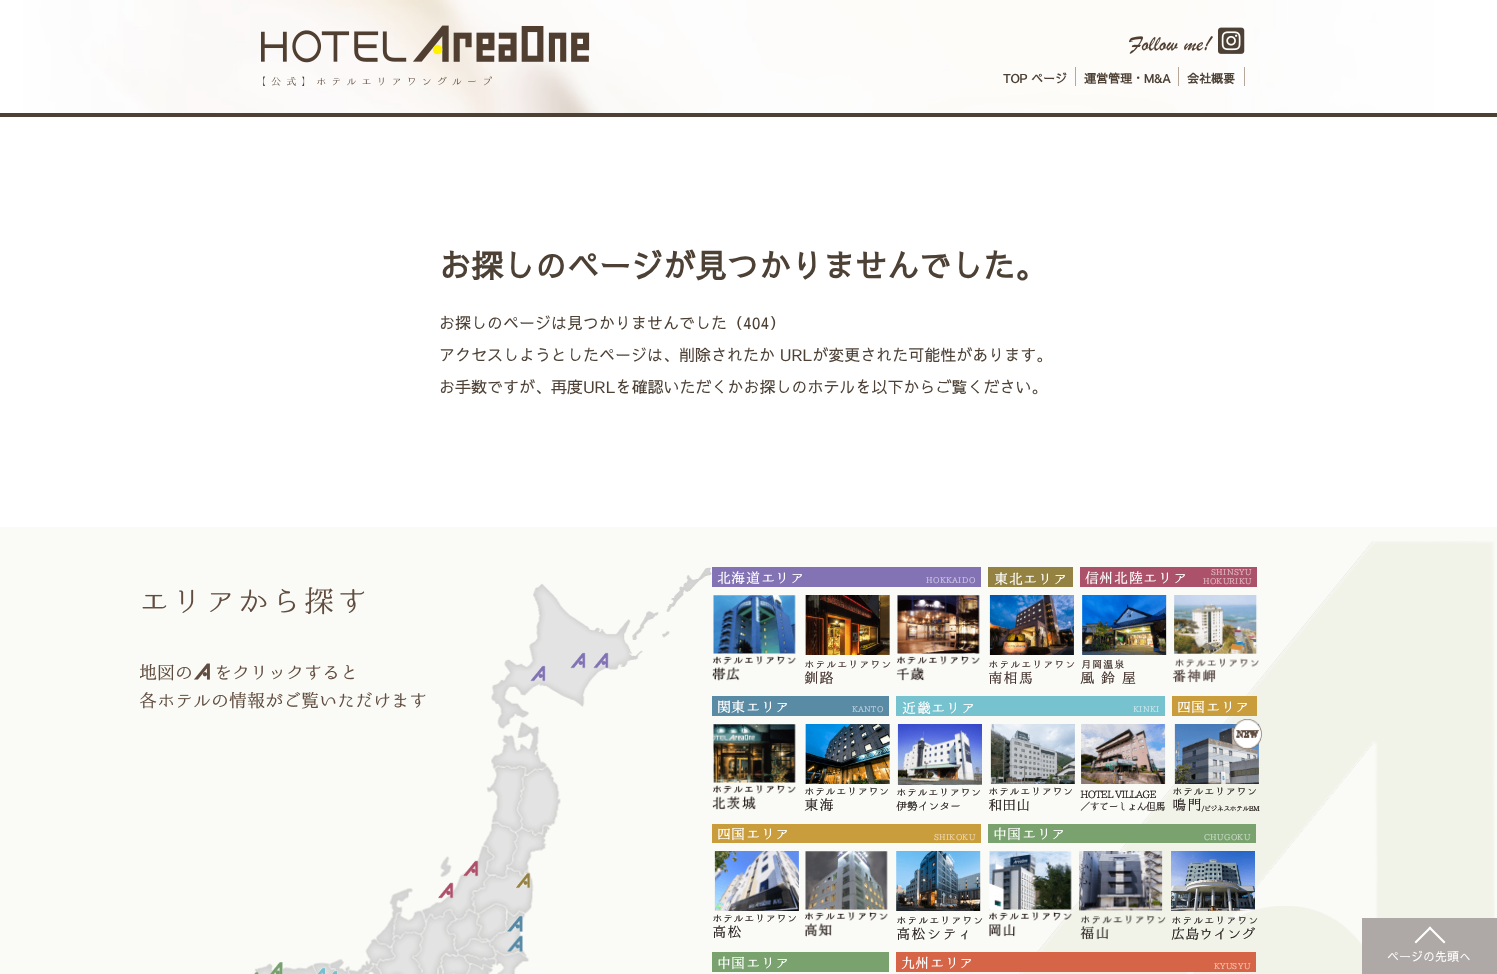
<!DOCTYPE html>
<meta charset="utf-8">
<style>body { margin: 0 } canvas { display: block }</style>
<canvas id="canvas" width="1497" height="974"></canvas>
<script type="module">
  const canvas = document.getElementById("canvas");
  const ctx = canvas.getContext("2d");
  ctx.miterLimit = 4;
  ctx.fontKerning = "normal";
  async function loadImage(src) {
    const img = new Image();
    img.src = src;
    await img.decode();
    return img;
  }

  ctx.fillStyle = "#ffffff";
  ctx.fillRect(0, 0, 1497, 974);
  ctx.drawImage(await loadImage("img1.png"), 23, 0, 1412, 113);
  ctx.fillStyle = "#4d4136";
  ctx.fillRect(0, 113, 1497, 4);
  ctx.drawImage(await loadImage("img2.png"), 261, 25, 329, 61);
  ctx.drawImage(await loadImage("img3.png"), 1129, 36, 84, 18);
  ctx.drawImage(await loadImage("img4.png"), 1218, 27, 27, 27);
  ctx.fillStyle = "#b7a798";
  ctx.fillRect(1075, 67, 1, 19);
  ctx.font = "bold 12px Sawarabi Gothic";
  ctx.fillStyle = "#4d4136";
  ctx.fillText("TOP ページ", 1003, 83);
  ctx.fillStyle = "#b7a798";
  ctx.fillRect(1178, 67, 1, 19);
  ctx.fillStyle = "#4d4136";
  ctx.fillText("運営管理・M&A", 1084, 83);
  ctx.fillStyle = "#b7a798";
  ctx.fillRect(1244, 67, 1, 19);
  ctx.fillStyle = "#4d4136";
  ctx.fillText("会社概要", 1187, 83);
  ctx.font = "bold 32px Sawarabi Gothic";
  ctx.fillText("お探しのページが見つかりませんでした。", 439, 278);
  ctx.font = "16px Sawarabi Gothic";
  ctx.fillText("お探しのページは見つかりませんでした（404）", 439, 329);
  ctx.fillText("アクセスしようとしたページは、削除されたか URLが変更された可能性があります。", 439, 361);
  ctx.fillText("お手数ですが、再度URLを確認いただくかお探しのホテルを以下からご覧ください。", 439, 393);
  ctx.fillStyle = "#fafbf6";
  ctx.fillRect(0, 527, 1497, 447);
  ctx.drawImage(await loadImage("img5.png"), 1019, 541, 476, 433);
  ctx.drawImage(await loadImage("img7.png"), 254, 567, 458, 407);
  ctx.drawImage(await loadImage("img6.png"), 142, 587, 223, 28);
  ctx.drawImage(await loadImage("img8.png"), 140, 663, 286, 46);
  ctx.fillStyle = "#8372b4";
  ctx.fillRect(712, 567, 269, 20);
  ctx.drawImage(await loadImage("img9.png"), 717, 571, 85, 14);
  ctx.drawImage(await loadImage("img10.png"), 926, 577, 50, 7);
  ctx.drawImage(await loadImage("img11.png"), 712, 595, 84, 86);
  ctx.drawImage(await loadImage("img12.png"), 804, 595, 87, 89);
  ctx.drawImage(await loadImage("img13.png"), 896, 595, 84, 86);
  ctx.fillStyle = "#948242";
  ctx.fillRect(988, 567, 85, 20);
  ctx.drawImage(await loadImage("img14.png"), 994, 572, 71, 14);
  ctx.drawImage(await loadImage("img15.png"), 989, 595, 86, 89);
  ctx.fillStyle = "#ac516a";
  ctx.fillRect(1080, 567, 177, 20);
  ctx.drawImage(await loadImage("img16.png"), 1085, 571, 100, 14);
  ctx.drawImage(await loadImage("img17.png"), 1203, 569, 49, 16);
  ctx.drawImage(await loadImage("img18.png"), 1080, 595, 87, 89);
  ctx.drawImage(await loadImage("img19.png"), 1172, 595, 87, 88);
  ctx.fillStyle = "#5a8ba4";
  ctx.fillRect(712, 696, 177, 20);
  ctx.drawImage(await loadImage("img20.png"), 718, 700, 69, 14);
  ctx.drawImage(await loadImage("img21.png"), 852, 706, 32, 7);
  ctx.drawImage(await loadImage("img22.png"), 712, 724, 84, 86);
  ctx.drawImage(await loadImage("img23.png"), 804, 724, 86, 87);
  ctx.fillStyle = "#76c2ce";
  ctx.fillRect(896, 696, 269, 20);
  ctx.drawImage(await loadImage("img24.png"), 902, 701, 71, 14);
  ctx.drawImage(await loadImage("img25.png"), 1133, 706, 26, 7);
  ctx.drawImage(await loadImage("img26.png"), 896, 724, 86, 87);
  ctx.drawImage(await loadImage("img27.png"), 989, 724, 86, 87);
  ctx.drawImage(await loadImage("img28.png"), 1080, 724, 86, 87);
  ctx.fillStyle = "#c99d3c";
  ctx.fillRect(1172, 696, 85, 20);
  ctx.drawImage(await loadImage("img29.png"), 1178, 700, 69, 14);
  ctx.drawImage(await loadImage("img31.png"), 1173, 724, 87, 88);
  ctx.drawImage(await loadImage("img30.png"), 1233, 719, 29, 30);
  ctx.fillRect(712, 824, 269, 19);
  ctx.drawImage(await loadImage("img29.png"), 718, 827, 69, 14);
  ctx.drawImage(await loadImage("img32.png"), 934, 834, 42, 7);
  ctx.drawImage(await loadImage("img33.png"), 713, 851, 86, 87);
  ctx.drawImage(await loadImage("img34.png"), 805, 851, 83, 86);
  ctx.drawImage(await loadImage("img35.png"), 896, 851, 87, 89);
  ctx.fillStyle = "#79a26f";
  ctx.fillRect(988, 824, 268, 19);
  ctx.drawImage(await loadImage("img36.png"), 994, 827, 69, 14);
  ctx.drawImage(await loadImage("img37.png"), 1204, 834, 47, 7);
  ctx.drawImage(await loadImage("img38.png"), 989, 851, 83, 86);
  ctx.drawImage(await loadImage("img39.png"), 1079, 851, 87, 89);
  ctx.drawImage(await loadImage("img40.png"), 1171, 851, 87, 89);
  ctx.fillRect(712, 952, 177, 20);
  ctx.drawImage(await loadImage("img36.png"), 718, 956, 69, 14);
  ctx.fillStyle = "#d66548";
  ctx.fillRect(896, 952, 360, 20);
  ctx.drawImage(await loadImage("img41.png"), 901, 956, 70, 13);
  ctx.drawImage(await loadImage("img42.png"), 1214, 963, 37, 7);
  ctx.drawImage(await loadImage("img43.png"), 570, 652, 16, 17);
  ctx.drawImage(await loadImage("img44.png"), 593, 652, 16, 17);
  ctx.drawImage(await loadImage("img45.png"), 530, 665, 16, 17);
  ctx.drawImage(await loadImage("img46.png"), 462, 860, 17, 17);
  ctx.drawImage(await loadImage("img47.png"), 438, 882, 16, 17);
  ctx.drawImage(await loadImage("img48.png"), 515, 872, 16, 17);
  ctx.drawImage(await loadImage("img49.png"), 506, 915, 17, 17);
  ctx.drawImage(await loadImage("img50.png"), 506, 935, 17, 17);
  ctx.drawImage(await loadImage("img51.png"), 254, 972, 5, 2);
  ctx.drawImage(await loadImage("img52.png"), 270, 962, 13, 12);
  ctx.drawImage(await loadImage("img53.png"), 317, 967, 9, 7);
  ctx.drawImage(await loadImage("img54.png"), 331, 970, 7, 4);
  ctx.fillStyle = "#aea8a6";
  ctx.fillRect(1362, 918, 135, 56);
  ctx.fillStyle = "#ffffff";
  ctx.beginPath();
  ctx.moveTo(1414.5, 942);
  ctx.lineTo(1430, 926.5);
  ctx.lineTo(1431.5, 928);
  ctx.lineTo(1416, 943.5);
  ctx.closePath();
  ctx.fill();
  ctx.beginPath();
  ctx.moveTo(1428.5, 928);
  ctx.lineTo(1430, 926.5);
  ctx.lineTo(1445.5, 942);
  ctx.lineTo(1444, 943.5);
  ctx.closePath();
  ctx.fill();
  ctx.font = "12px Sawarabi Gothic";
  ctx.fillText("ページの先頭へ", 1387, 961);
</script>
